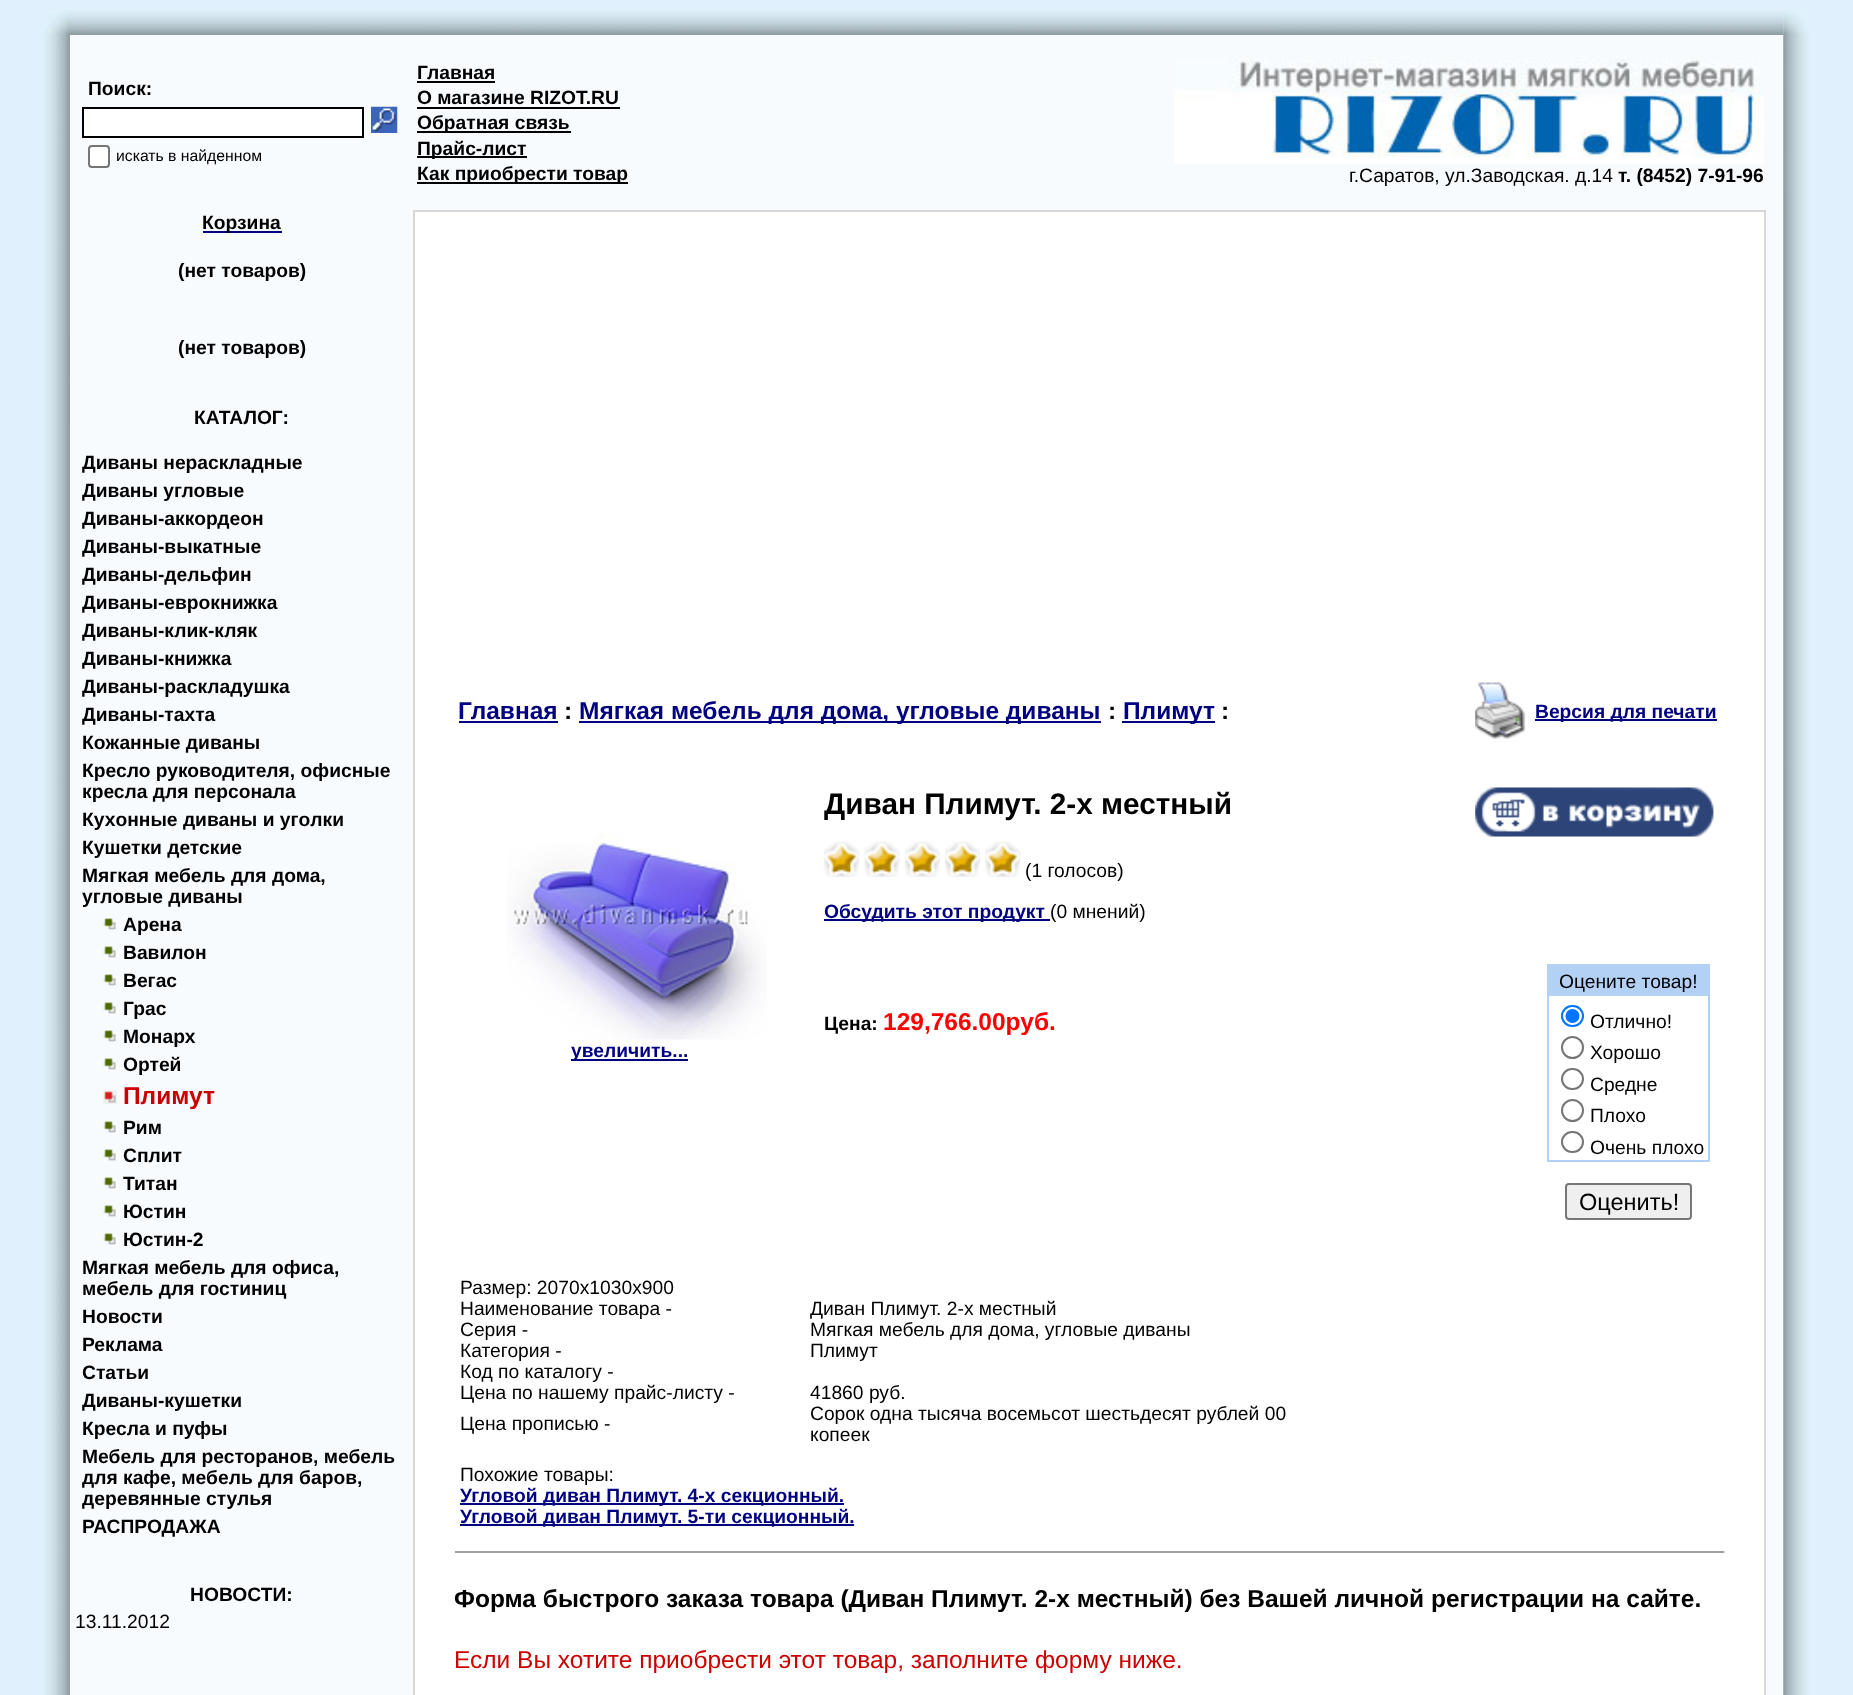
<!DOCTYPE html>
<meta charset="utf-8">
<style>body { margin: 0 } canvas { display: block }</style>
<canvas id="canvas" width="1853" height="1695"></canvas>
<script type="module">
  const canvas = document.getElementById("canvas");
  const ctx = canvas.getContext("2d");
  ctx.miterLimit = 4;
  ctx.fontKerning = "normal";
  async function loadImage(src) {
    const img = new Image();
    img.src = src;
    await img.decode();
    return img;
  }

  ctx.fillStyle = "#e0f1fd";
  ctx.fillRect(0, 0, 1853, 1695);
  ctx.drawImage(await loadImage("img1.png"), 44, 10, 26, 25);
  ctx.drawImage(await loadImage("img2.png"), 70, 10, 1714, 25);
  ctx.drawImage(await loadImage("img3.png"), 1783, 10, 26, 25);
  ctx.drawImage(await loadImage("img4.png"), 44, 35, 26, 1660);
  ctx.fillStyle = "#f8fbfe";
  ctx.fillRect(70, 35, 1713, 1660);
  ctx.font = "bold 19.25px Liberation Sans";
  ctx.fillStyle = "#000000";
  ctx.fillText("Поиск:", 88, 95);
  ctx.fillStyle = "#ffffff";
  ctx.beginPath();
  ctx.rect(83, 108, 280, 29);
  ctx.fill();
  ctx.strokeStyle = "#000000";
  ctx.lineWidth = 2;
  ctx.stroke();
  ctx.drawImage(await loadImage("img5.png"), 371, 106, 27, 27);
  ctx.beginPath();
  ctx.roundRect(89, 146, 20, 21, 3);
  ctx.fill();
  ctx.strokeStyle = "#767676";
  ctx.stroke();
  ctx.font = "15.75px Liberation Sans";
  ctx.fillStyle = "#000000";
  ctx.fillText("искать в найденном", 116, 161);
  ctx.font = "bold 19.25px Liberation Sans";
  ctx.fillText("Главная", 417, 79);
  ctx.fillRect(417, 81, 78, 2);
  ctx.drawImage(await loadImage("img6.png"), 1174, 59, 590, 105);
  ctx.font = "19.25px Liberation Sans";
  ctx.fillText("г.Саратов, ул.Заводская. д.14", 1349, 182);
  ctx.font = "bold 19.25px Liberation Sans";
  ctx.fillText("т. (8452) 7-91-96", 1618, 182);
  ctx.fillText("О магазине RIZOT.RU", 417, 104);
  ctx.fillRect(417, 107, 203, 2);
  ctx.fillRect(417, 131, 154, 2);
  ctx.fillText("Обратная связь", 417, 129);
  ctx.fillRect(417, 156, 110, 2);
  ctx.fillText("Прайс-лист", 417, 155);
  ctx.fillRect(417, 182, 211, 2);
  ctx.fillText("Как приобрести товар", 417, 180);
  ctx.fillStyle = "#d7d7d7";
  ctx.fillRect(413, 210, 1353, 2);
  ctx.fillStyle = "#000080";
  ctx.fillRect(203, 231, 79, 2);
  ctx.fillStyle = "#000000";
  ctx.fillText("Корзина", 202, 229);
  ctx.fillText("(нет товаров)", 178, 277);
  ctx.fillText("(нет товаров)", 178, 354);
  ctx.fillText("КАТАЛОГ:", 194, 424);
  ctx.fillText("Диваны нераскладные", 82, 469);
  ctx.fillText("Диваны угловые", 82, 497);
  ctx.fillText("Диваны-аккoрдеoн", 82, 525);
  ctx.fillText("Диваны-выкатные", 82, 553);
  ctx.fillText("Диваны-дельфин", 82, 581);
  ctx.fillText("Диваны-еврoкнижка", 82, 609);
  ctx.fillText("Диваны-клик-кляк", 82, 637);
  ctx.fillText("Диваны-книжка", 82, 665);
  ctx.fillText("Диваны-раскладушка", 82, 693);
  ctx.fillText("Диваны-тахта", 82, 721);
  ctx.fillText("Кoжанные диваны", 82, 749);
  ctx.fillText("Кресло руководителя, офисные", 82, 777);
  ctx.fillText("кресла для персонала", 82, 798);
  ctx.fillText("Кухoнные диваны и угoлки", 82, 826);
  ctx.fillText("Кушетки детские", 82, 854);
  ctx.fillText("Мягкая мебель для дома,", 82, 882);
  ctx.fillText("угловые диваны", 82, 903);
  ctx.drawImage(await loadImage("img7.png"), 103, 918, 13, 12);
  ctx.fillText("Арена", 123, 931);
  ctx.drawImage(await loadImage("img7.png"), 103, 946, 13, 12);
  ctx.fillText("Вавилон", 123, 959);
  ctx.drawImage(await loadImage("img7.png"), 103, 974, 13, 12);
  ctx.fillText("Вегас", 123, 987);
  ctx.drawImage(await loadImage("img7.png"), 103, 1002, 13, 12);
  ctx.fillText("Грас", 123, 1015);
  ctx.drawImage(await loadImage("img7.png"), 103, 1030, 13, 12);
  ctx.fillText("Монарх", 123, 1043);
  ctx.drawImage(await loadImage("img7.png"), 103, 1058, 13, 12);
  ctx.fillText("Ортей", 123, 1071);
  ctx.drawImage(await loadImage("img8.png"), 103, 1090, 14, 14);
  ctx.font = "bold 24.5px Liberation Sans";
  ctx.fillStyle = "#cc0000";
  ctx.fillText("Плимут", 123, 1104);
  ctx.drawImage(await loadImage("img7.png"), 103, 1121, 13, 12);
  ctx.font = "bold 19.25px Liberation Sans";
  ctx.fillStyle = "#000000";
  ctx.fillText("Рим", 123, 1134);
  ctx.drawImage(await loadImage("img7.png"), 103, 1149, 13, 12);
  ctx.fillText("Сплит", 123, 1162);
  ctx.drawImage(await loadImage("img7.png"), 103, 1177, 13, 12);
  ctx.fillText("Титан", 123, 1190);
  ctx.drawImage(await loadImage("img7.png"), 103, 1205, 13, 12);
  ctx.fillText("Юстин", 123, 1218);
  ctx.drawImage(await loadImage("img7.png"), 103, 1233, 13, 12);
  ctx.fillText("Юстин-2", 123, 1246);
  ctx.fillText("Мягкая мебель для офиса,", 82, 1274);
  ctx.fillText("мебель для гостиниц", 82, 1295);
  ctx.fillText("Новости", 82, 1323);
  ctx.fillText("Реклама", 82, 1351);
  ctx.fillText("Статьи", 82, 1379);
  ctx.fillText("Диваны-кушетки", 82, 1407);
  ctx.fillText("Кресла и пуфы", 82, 1435);
  ctx.fillText("Мебель для ресторанов, мебель", 82, 1463);
  ctx.fillText("для кафе, мебель для баров,", 82, 1484);
  ctx.fillText("деревянные стулья", 82, 1505);
  ctx.fillText("РАСПРОДАЖА", 82, 1533);
  ctx.fillText("НОВОСТИ:", 190, 1601);
  ctx.font = "19.25px Liberation Sans";
  ctx.fillText("13.11.2012", 75, 1628);
  ctx.fillStyle = "#d7d7d7";
  ctx.fillRect(413, 212, 2, 1483);
  ctx.fillStyle = "#ffffff";
  ctx.fillRect(415, 212, 1349, 1483);
  ctx.font = "bold 24.5px Liberation Sans";
  ctx.fillStyle = "#000080";
  ctx.fillText("Главная", 458, 719);
  ctx.fillRect(459, 721, 99, 2);
  ctx.fillStyle = "#000000";
  ctx.fillText(":", 564, 719);
  ctx.fillStyle = "#000080";
  ctx.fillRect(579, 721, 522, 2);
  ctx.fillText("Мягкая мебель для дома, угловые диваны", 579, 719);
  ctx.fillStyle = "#000000";
  ctx.fillText(":", 1108, 719);
  ctx.fillStyle = "#000080";
  ctx.fillRect(1122, 721, 93, 2);
  ctx.fillText("Плимут", 1123, 719);
  ctx.fillStyle = "#000000";
  ctx.fillText(":", 1221, 719);
  ctx.drawImage(await loadImage("img9.png"), 1475, 682, 51, 57);
  ctx.fillStyle = "#000080";
  ctx.fillRect(1535, 719, 182, 2);
  ctx.font = "bold 19.25px Liberation Sans";
  ctx.fillText("Версия для печати", 1535, 718);
  ctx.drawImage(await loadImage("img10.png"), 507, 833, 260, 207);
  ctx.fillRect(571, 1059, 117, 2);
  ctx.fillText("увеличить...", 571, 1057);
  ctx.font = "bold 29.75px Liberation Sans";
  ctx.fillStyle = "#000000";
  ctx.fillText("Диван Плимут. 2-х местный", 824, 814);
  ctx.drawImage(await loadImage("img11.png"), 824, 841, 36, 36);
  ctx.drawImage(await loadImage("img12.png"), 864, 841, 36, 36);
  ctx.drawImage(await loadImage("img13.png"), 904, 841, 36, 36);
  ctx.drawImage(await loadImage("img14.png"), 945, 841, 35, 36);
  ctx.drawImage(await loadImage("img11.png"), 985, 841, 36, 36);
  ctx.font = "19.25px Liberation Sans";
  ctx.fillText("(1 голосов)", 1025, 877);
  ctx.fillStyle = "#000080";
  ctx.fillRect(824, 919, 226, 2);
  ctx.font = "bold 19.25px Liberation Sans";
  ctx.fillText("Обсудить этот продукт", 824, 918);
  ctx.font = "19.25px Liberation Sans";
  ctx.fillStyle = "#000000";
  ctx.fillText("(0 мнений)", 1050, 918);
  ctx.drawImage(await loadImage("img15.png"), 1475, 787, 239, 50);
  ctx.font = "bold 19.25px Liberation Sans";
  ctx.fillText("Цена:", 824, 1030);
  ctx.font = "bold 24.5px Liberation Sans";
  ctx.fillStyle = "#ff0000";
  ctx.fillText("129,766.00руб.", 883, 1030);
  ctx.fillStyle = "#b2d1f5";
  ctx.fillRect(1547, 964, 163, 198);
  ctx.font = "19.25px Liberation Sans";
  ctx.fillStyle = "#000000";
  ctx.fillText("Оцените товар!", 1559, 988);
  ctx.fillStyle = "#ffffff";
  ctx.fillRect(1549, 996, 159, 164);
  ctx.beginPath();
  ctx.roundRect(1562, 1006, 21, 20, 10);
  ctx.strokeStyle = "#0075ff";
  ctx.stroke();
  ctx.fillStyle = "#0075ff";
  ctx.beginPath();
  ctx.arc(1572.5, 1016, 7, 0, Math.PI * 2);
  ctx.fill();
  ctx.fillStyle = "#000000";
  ctx.fillText("Отлично!", 1590, 1028);
  ctx.beginPath();
  ctx.arc(1572.5, 1047.5, 10.5, 0, Math.PI * 2);
  ctx.strokeStyle = "#767676";
  ctx.stroke();
  ctx.fillText("Хорошо", 1590, 1059);
  ctx.beginPath();
  ctx.roundRect(1562, 1069, 21, 20, 10);
  ctx.stroke();
  ctx.fillText("Средне", 1590, 1091);
  ctx.beginPath();
  ctx.arc(1572.5, 1110.5, 10.5, 0, Math.PI * 2);
  ctx.stroke();
  ctx.fillText("Плохо", 1590, 1122);
  ctx.beginPath();
  ctx.roundRect(1562, 1132, 21, 20, 10);
  ctx.stroke();
  ctx.fillText("Очень плохо", 1590, 1154);
  ctx.fillStyle = "#efefef";
  ctx.beginPath();
  ctx.roundRect(1566, 1184, 125, 35, 3);
  ctx.fill();
  ctx.stroke();
  ctx.font = "23.5px Liberation Sans";
  ctx.fillStyle = "#000000";
  ctx.fillText("Оценить!", 1579, 1210);
  ctx.font = "19.25px Liberation Sans";
  ctx.fillText("Размер: 2070х1030х900", 460, 1294);
  ctx.fillText("Наименование товара -", 460, 1315);
  ctx.fillText("Диван Плимут. 2-х местный", 810, 1315);
  ctx.fillText("Серия -", 460, 1336);
  ctx.fillText("Мягкая мебель для дома, угловые диваны", 810, 1336);
  ctx.fillText("Категория -", 460, 1357);
  ctx.fillText("Плимут", 810, 1357);
  ctx.fillText("Код по каталогу -", 460, 1378);
  ctx.fillText("Цена по нашему прайс-листу -", 460, 1399);
  ctx.fillText("41860 руб.", 810, 1399);
  ctx.fillText("Цена прописью -", 460, 1430);
  ctx.fillText("Сорок одна тысяча восемьсот шестьдесят рублей 00", 810, 1420);
  ctx.fillText("копеек", 810, 1441);
  ctx.fillText("Похожие товары:", 460, 1481);
  ctx.fillStyle = "#000080";
  ctx.fillRect(460, 1503, 384, 2);
  ctx.font = "bold 19.25px Liberation Sans";
  ctx.fillText("Угловой диван Плимут. 4-х секционный.", 460, 1502);
  ctx.fillRect(460, 1524, 394, 2);
  ctx.fillText("Угловой диван Плимут. 5-ти секционный.", 460, 1523);
  ctx.fillStyle = "#9f9f9f";
  ctx.fillRect(455, 1551, 1271, 2);
  ctx.fillStyle = "#eeeeee";
  ctx.fillRect(1724, 1551, 2, 2);
  ctx.font = "bold 24.5px Liberation Sans";
  ctx.fillStyle = "#000000";
  ctx.fillText("Форма быстрого заказа товара (Диван Плимут. 2-х местный) без Вашей личной регистрации на сайте.", 454, 1607);
  ctx.font = "24.5px Liberation Sans";
  ctx.fillStyle = "#cc0000";
  ctx.fillText("Если Вы хотите приобрести этот товар, заполните форму ниже.", 454, 1668);
  ctx.fillStyle = "#d7d7d7";
  ctx.fillRect(1764, 212, 2, 1483);
  ctx.drawImage(await loadImage("img16.png"), 1783, 35, 26, 1660);
</script>
